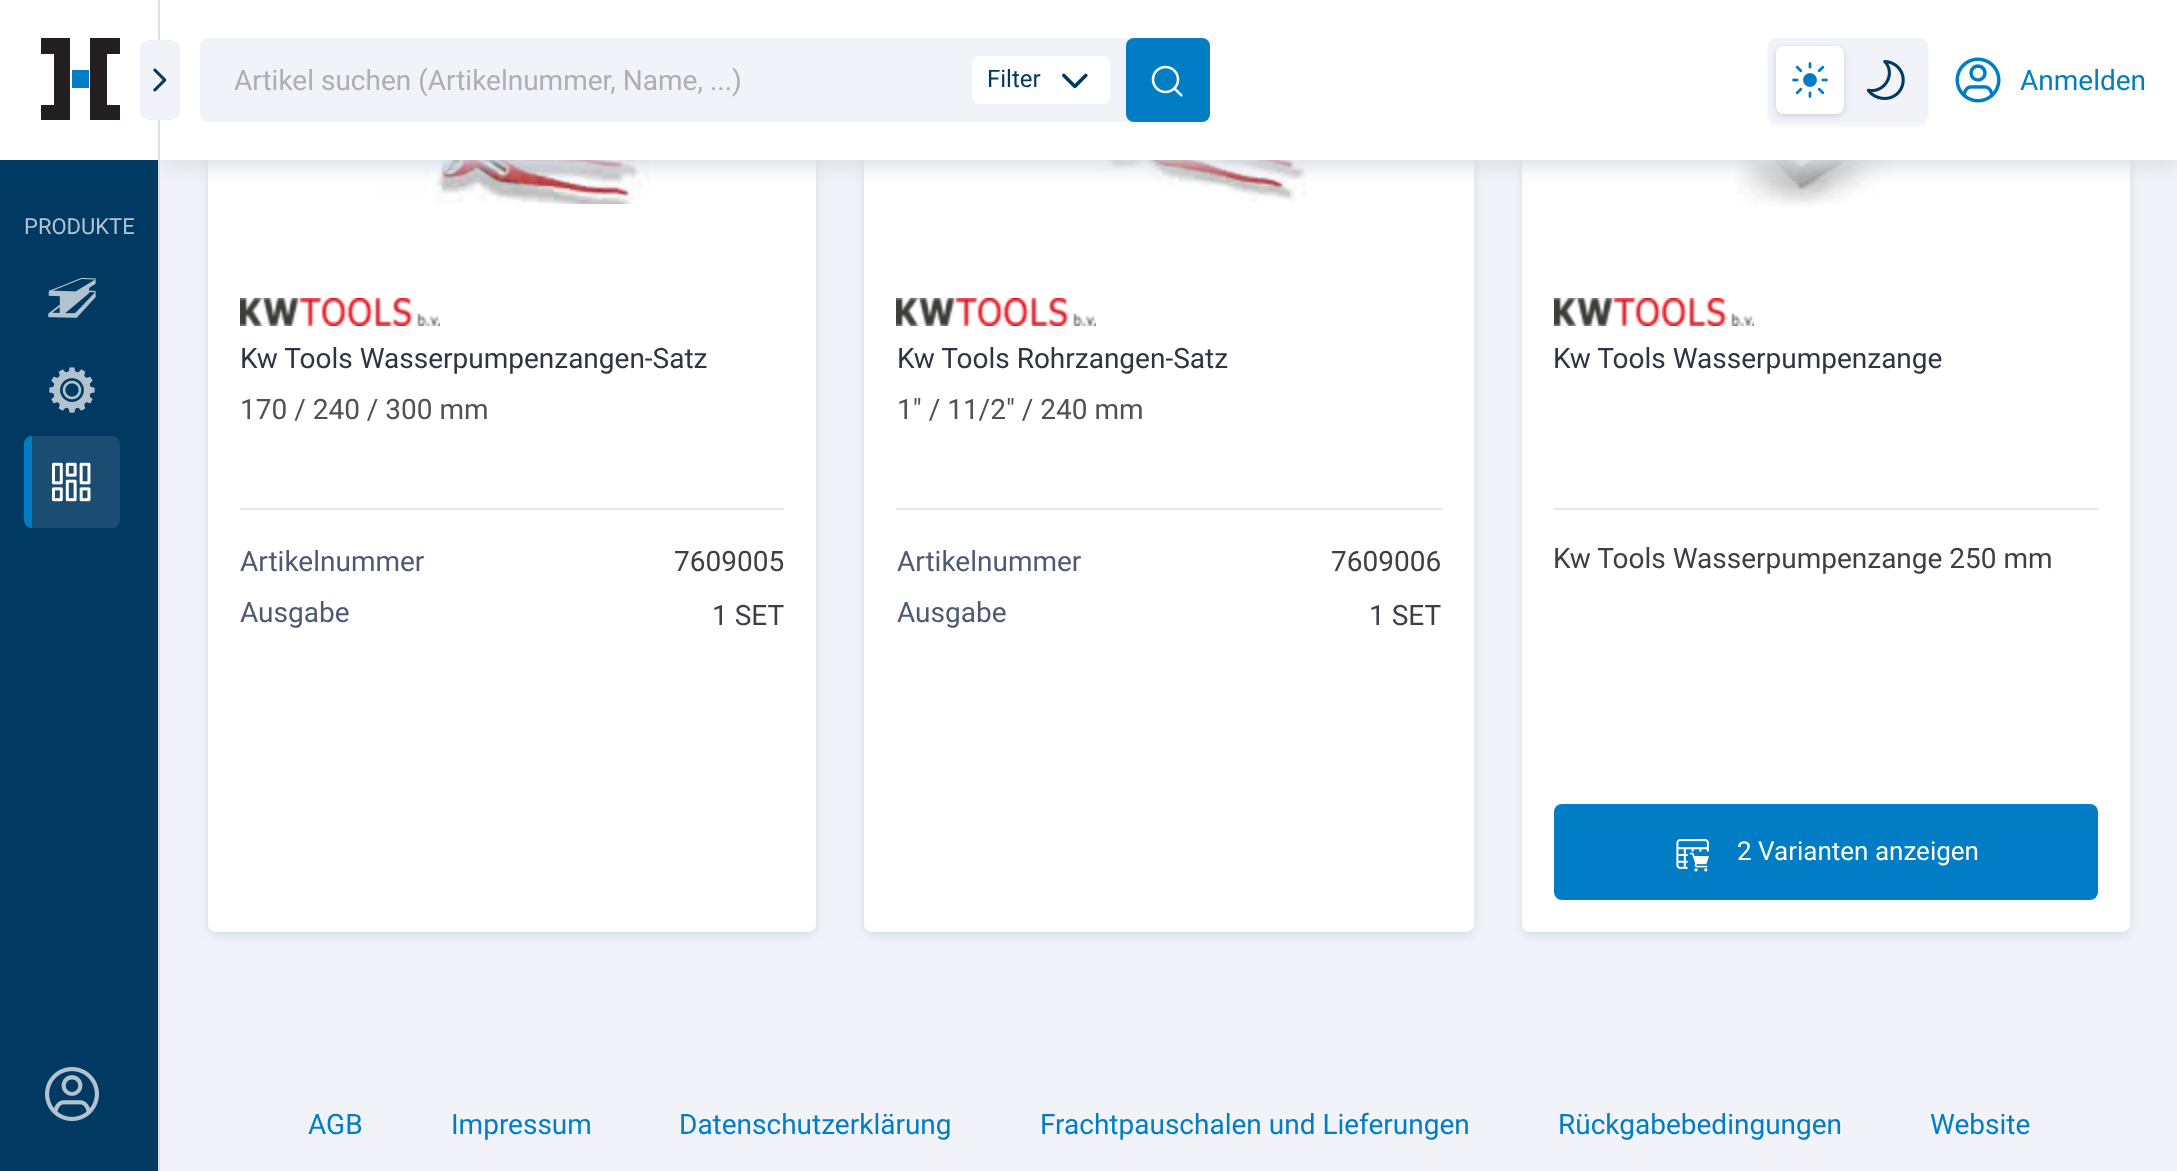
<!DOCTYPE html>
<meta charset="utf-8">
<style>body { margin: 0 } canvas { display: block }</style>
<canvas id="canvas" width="2177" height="1171"></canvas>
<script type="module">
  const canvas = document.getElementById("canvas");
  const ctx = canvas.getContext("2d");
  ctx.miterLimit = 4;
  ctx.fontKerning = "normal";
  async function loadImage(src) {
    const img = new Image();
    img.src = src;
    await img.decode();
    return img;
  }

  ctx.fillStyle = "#f1f3f9";
  ctx.fillRect(0, 0, 2177, 1171);
  ctx.fillStyle = "#d9dde8";
  ctx.filter = "blur(5px)";
  ctx.beginPath();
  ctx.roundRect(208, -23, 608, 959, 8);
  ctx.fill();
  ctx.filter = "none";
  ctx.fillStyle = "#ffffff";
  ctx.beginPath();
  ctx.roundRect(208, -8, 608, 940, 8);
  ctx.fill();
  ctx.drawImage(await loadImage("img11.png"), 377, 160, 274, 44);
  ctx.fillStyle = "#d9dde8";
  ctx.filter = "blur(5px)";
  ctx.beginPath();
  ctx.roundRect(864, -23, 610, 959, 8);
  ctx.fill();
  ctx.filter = "none";
  ctx.fillStyle = "#ffffff";
  ctx.beginPath();
  ctx.roundRect(864, -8, 610, 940, 8);
  ctx.fill();
  ctx.drawImage(await loadImage("img13.png"), 1034, 160, 280, 42);
  ctx.fillStyle = "#d9dde8";
  ctx.filter = "blur(5px)";
  ctx.beginPath();
  ctx.roundRect(1522, -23, 608, 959, 8);
  ctx.fill();
  ctx.filter = "none";
  ctx.fillStyle = "#ffffff";
  ctx.beginPath();
  ctx.roundRect(1522, -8, 608, 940, 8);
  ctx.fill();
  ctx.drawImage(await loadImage("img14.png"), 1734, 160, 177, 47);
  ctx.fillStyle = "#d9dde8";
  ctx.filter = "blur(10px)";
  ctx.beginPath();
  ctx.rect(160, 6, 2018, 160);
  ctx.fill();
  ctx.filter = "none";
  ctx.fillStyle = "#ffffff";
  ctx.fillRect(160, 0, 2017, 160);
  ctx.fillStyle = "#dfdfe2";
  ctx.fillRect(158, 0, 2, 1171);
  ctx.fillStyle = "#ffffff";
  ctx.fillRect(0, 0, 158, 160);
  ctx.fillStyle = "#f1f3f9";
  ctx.beginPath();
  ctx.moveTo(172, 40);
  ctx.lineTo(148, 40);
  ctx.bezierCurveTo(144, 40, 140, 44, 140, 48);
  ctx.lineTo(140, 112);
  ctx.bezierCurveTo(140, 116, 144, 120, 148, 120);
  ctx.lineTo(172, 120);
  ctx.bezierCurveTo(176, 120, 180, 116, 180, 112);
  ctx.lineTo(180, 48);
  ctx.bezierCurveTo(180, 44, 176, 40, 172, 40);
  ctx.closePath();
  ctx.fill();
  ctx.drawImage(await loadImage("img1.png"), 153, 68, 14, 24);
  ctx.beginPath();
  ctx.roundRect(201, 39, 1008, 82, 7);
  ctx.fill();
  ctx.strokeStyle = "#f1f3f9";
  ctx.lineWidth = 2;
  ctx.stroke();
  ctx.font = "28px Roboto";
  ctx.fillStyle = "#acaeb8";
  ctx.fillText("Artikel suchen (Artikelnummer, Name, ...)", 234, 90);
  ctx.fillStyle = "#ffffff";
  ctx.beginPath();
  ctx.roundRect(972, 56, 138, 48, 8);
  ctx.fill();
  ctx.font = "24px Roboto";
  ctx.fillStyle = "#003961";
  ctx.fillText("Filter", 987, 87);
  ctx.drawImage(await loadImage("img2.png"), 1062, 73, 26, 16);
  ctx.fillStyle = "#007dc5";
  ctx.beginPath();
  ctx.roundRect(1126, 38, 84, 84, 8);
  ctx.fill();
  ctx.drawImage(await loadImage("img3.png"), 1151, 65, 32, 32);
  ctx.fillStyle = "rgba(0, 0, 0, 0.04)";
  ctx.filter = "blur(2px)";
  ctx.beginPath();
  ctx.roundRect(1768, 42, 160, 84, 8);
  ctx.fill();
  ctx.filter = "none";
  ctx.fillStyle = "#f1f3f9";
  ctx.beginPath();
  ctx.roundRect(1768, 38, 160, 84, 8);
  ctx.fill();
  ctx.fillStyle = "rgba(16, 24, 40, 0.06)";
  ctx.filter = "blur(2px)";
  ctx.beginPath();
  ctx.roundRect(1776, 48, 68, 68, 8);
  ctx.fill();
  ctx.filter = "none";
  ctx.fillStyle = "rgba(16, 24, 40, 0.1)";
  ctx.filter = "blur(3px)";
  ctx.beginPath();
  ctx.roundRect(1776, 48, 68, 68, 8);
  ctx.fill();
  ctx.filter = "none";
  ctx.fillStyle = "#ffffff";
  ctx.beginPath();
  ctx.roundRect(1776, 46, 68, 68, 8);
  ctx.fill();
  ctx.drawImage(await loadImage("img4.png"), 1792, 62, 36, 36);
  ctx.drawImage(await loadImage("img5.png"), 1866, 60, 39, 40);
  ctx.drawImage(await loadImage("img6.png"), 1955, 57, 46, 46);
  ctx.font = "28px Roboto";
  ctx.fillStyle = "#007dc5";
  ctx.fillText("Anmelden", 2020, 90);
  ctx.fillStyle = "#003961";
  ctx.fillRect(0, 160, 158, 1011);
  ctx.fillStyle = "#231f20";
  ctx.beginPath();
  ctx.moveTo(70, 38);
  ctx.lineTo(41, 38);
  ctx.lineTo(41, 54);
  ctx.lineTo(54, 54);
  ctx.lineTo(54, 105);
  ctx.lineTo(41, 105);
  ctx.lineTo(41, 120);
  ctx.lineTo(70, 120);
  ctx.closePath();
  ctx.moveTo(90, 38);
  ctx.lineTo(120, 38);
  ctx.lineTo(120, 54);
  ctx.lineTo(107, 54);
  ctx.lineTo(107, 105);
  ctx.lineTo(120, 105);
  ctx.lineTo(120, 120);
  ctx.lineTo(90, 120);
  ctx.closePath();
  ctx.fill();
  ctx.fillStyle = "#007dc5";
  ctx.fillRect(72, 70, 17, 18);
  ctx.font = "22px Roboto";
  ctx.fillStyle = "#b3c4d0";
  ctx.fillText("PRODUKTE", 24, 234);
  ctx.drawImage(await loadImage("img7.png"), 48, 277, 48, 41);
  ctx.drawImage(await loadImage("img8.png"), 49, 367, 46, 46);
  ctx.fillStyle = "#1a4d71";
  ctx.beginPath();
  ctx.roundRect(24, 436, 96, 92, 8);
  ctx.fill();
  ctx.fillStyle = "#007dc5";
  ctx.beginPath();
  ctx.roundRect(24, 436, 8, 92, [8, 0, 0, 8]);
  ctx.fill();
  ctx.drawImage(await loadImage("img9.png"), 52, 462, 39, 40);
  ctx.drawImage(await loadImage("img10.png"), 45, 1067, 54, 54);
  ctx.drawImage(await loadImage("img12.png"), 240, 298, 200, 28);
  ctx.font = "28px Roboto";
  ctx.fillStyle = "#2d3443";
  ctx.fillText("Kw Tools Wasserpumpenzangen-Satz", 240, 368);
  ctx.fillStyle = "#505153";
  ctx.fillText("170 / 240 / 300 mm", 240, 419);
  ctx.fillStyle = "#e7e6ea";
  ctx.fillRect(240, 508, 544, 2);
  ctx.fillStyle = "#4e5a74";
  ctx.fillText("Artikelnummer", 240, 571);
  ctx.fillStyle = "#3d3e48";
  ctx.fillText("7609005", 674, 571);
  ctx.fillStyle = "#4e5a74";
  ctx.fillText("Ausgabe", 240, 622);
  ctx.fillStyle = "#3d3e48";
  ctx.fillText("1 SET", 712, 625);
  ctx.drawImage(await loadImage("img12.png"), 896, 298, 200, 28);
  ctx.fillStyle = "#2d3443";
  ctx.fillText("Kw Tools Rohrzangen-Satz", 897, 368);
  ctx.fillStyle = "#505153";
  ctx.fillText("1\" / 11/2\" / 240 mm", 897, 419);
  ctx.fillStyle = "#e7e6ea";
  ctx.fillRect(896, 508, 546, 2);
  ctx.fillStyle = "#4e5a74";
  ctx.fillText("Artikelnummer", 897, 571);
  ctx.fillStyle = "#3d3e48";
  ctx.fillText("7609006", 1331, 571);
  ctx.fillStyle = "#4e5a74";
  ctx.fillText("Ausgabe", 897, 622);
  ctx.fillStyle = "#3d3e48";
  ctx.fillText("1 SET", 1369, 625);
  ctx.drawImage(await loadImage("img12.png"), 1554, 298, 200, 28);
  ctx.fillStyle = "#2d3443";
  ctx.fillText("Kw Tools Wasserpumpenzange", 1553, 368);
  ctx.fillStyle = "#e7e6ea";
  ctx.fillRect(1554, 508, 544, 2);
  ctx.fillStyle = "#3d3e48";
  ctx.fillText("Kw Tools Wasserpumpenzange 250 mm", 1553, 568);
  ctx.fillStyle = "#007dc5";
  ctx.beginPath();
  ctx.roundRect(1554, 804, 544, 96, 8);
  ctx.fill();
  ctx.drawImage(await loadImage("img15.png"), 1676, 839, 33, 33);
  ctx.font = "26px Roboto";
  ctx.fillStyle = "#ffffff";
  ctx.fillText("2 Varianten anzeigen", 1737, 860);
  ctx.font = "28px Roboto";
  ctx.fillStyle = "#007dc5";
  ctx.fillText("AGB", 308, 1134);
  ctx.fillText("Impressum", 451, 1134);
  ctx.fillText("Datenschutzerklärung", 679, 1134);
  ctx.fillText("Frachtpauschalen und Lieferungen", 1040, 1134);
  ctx.fillText("Rückgabebedingungen", 1558, 1134);
  ctx.fillText("Website", 1930, 1134);
</script>
